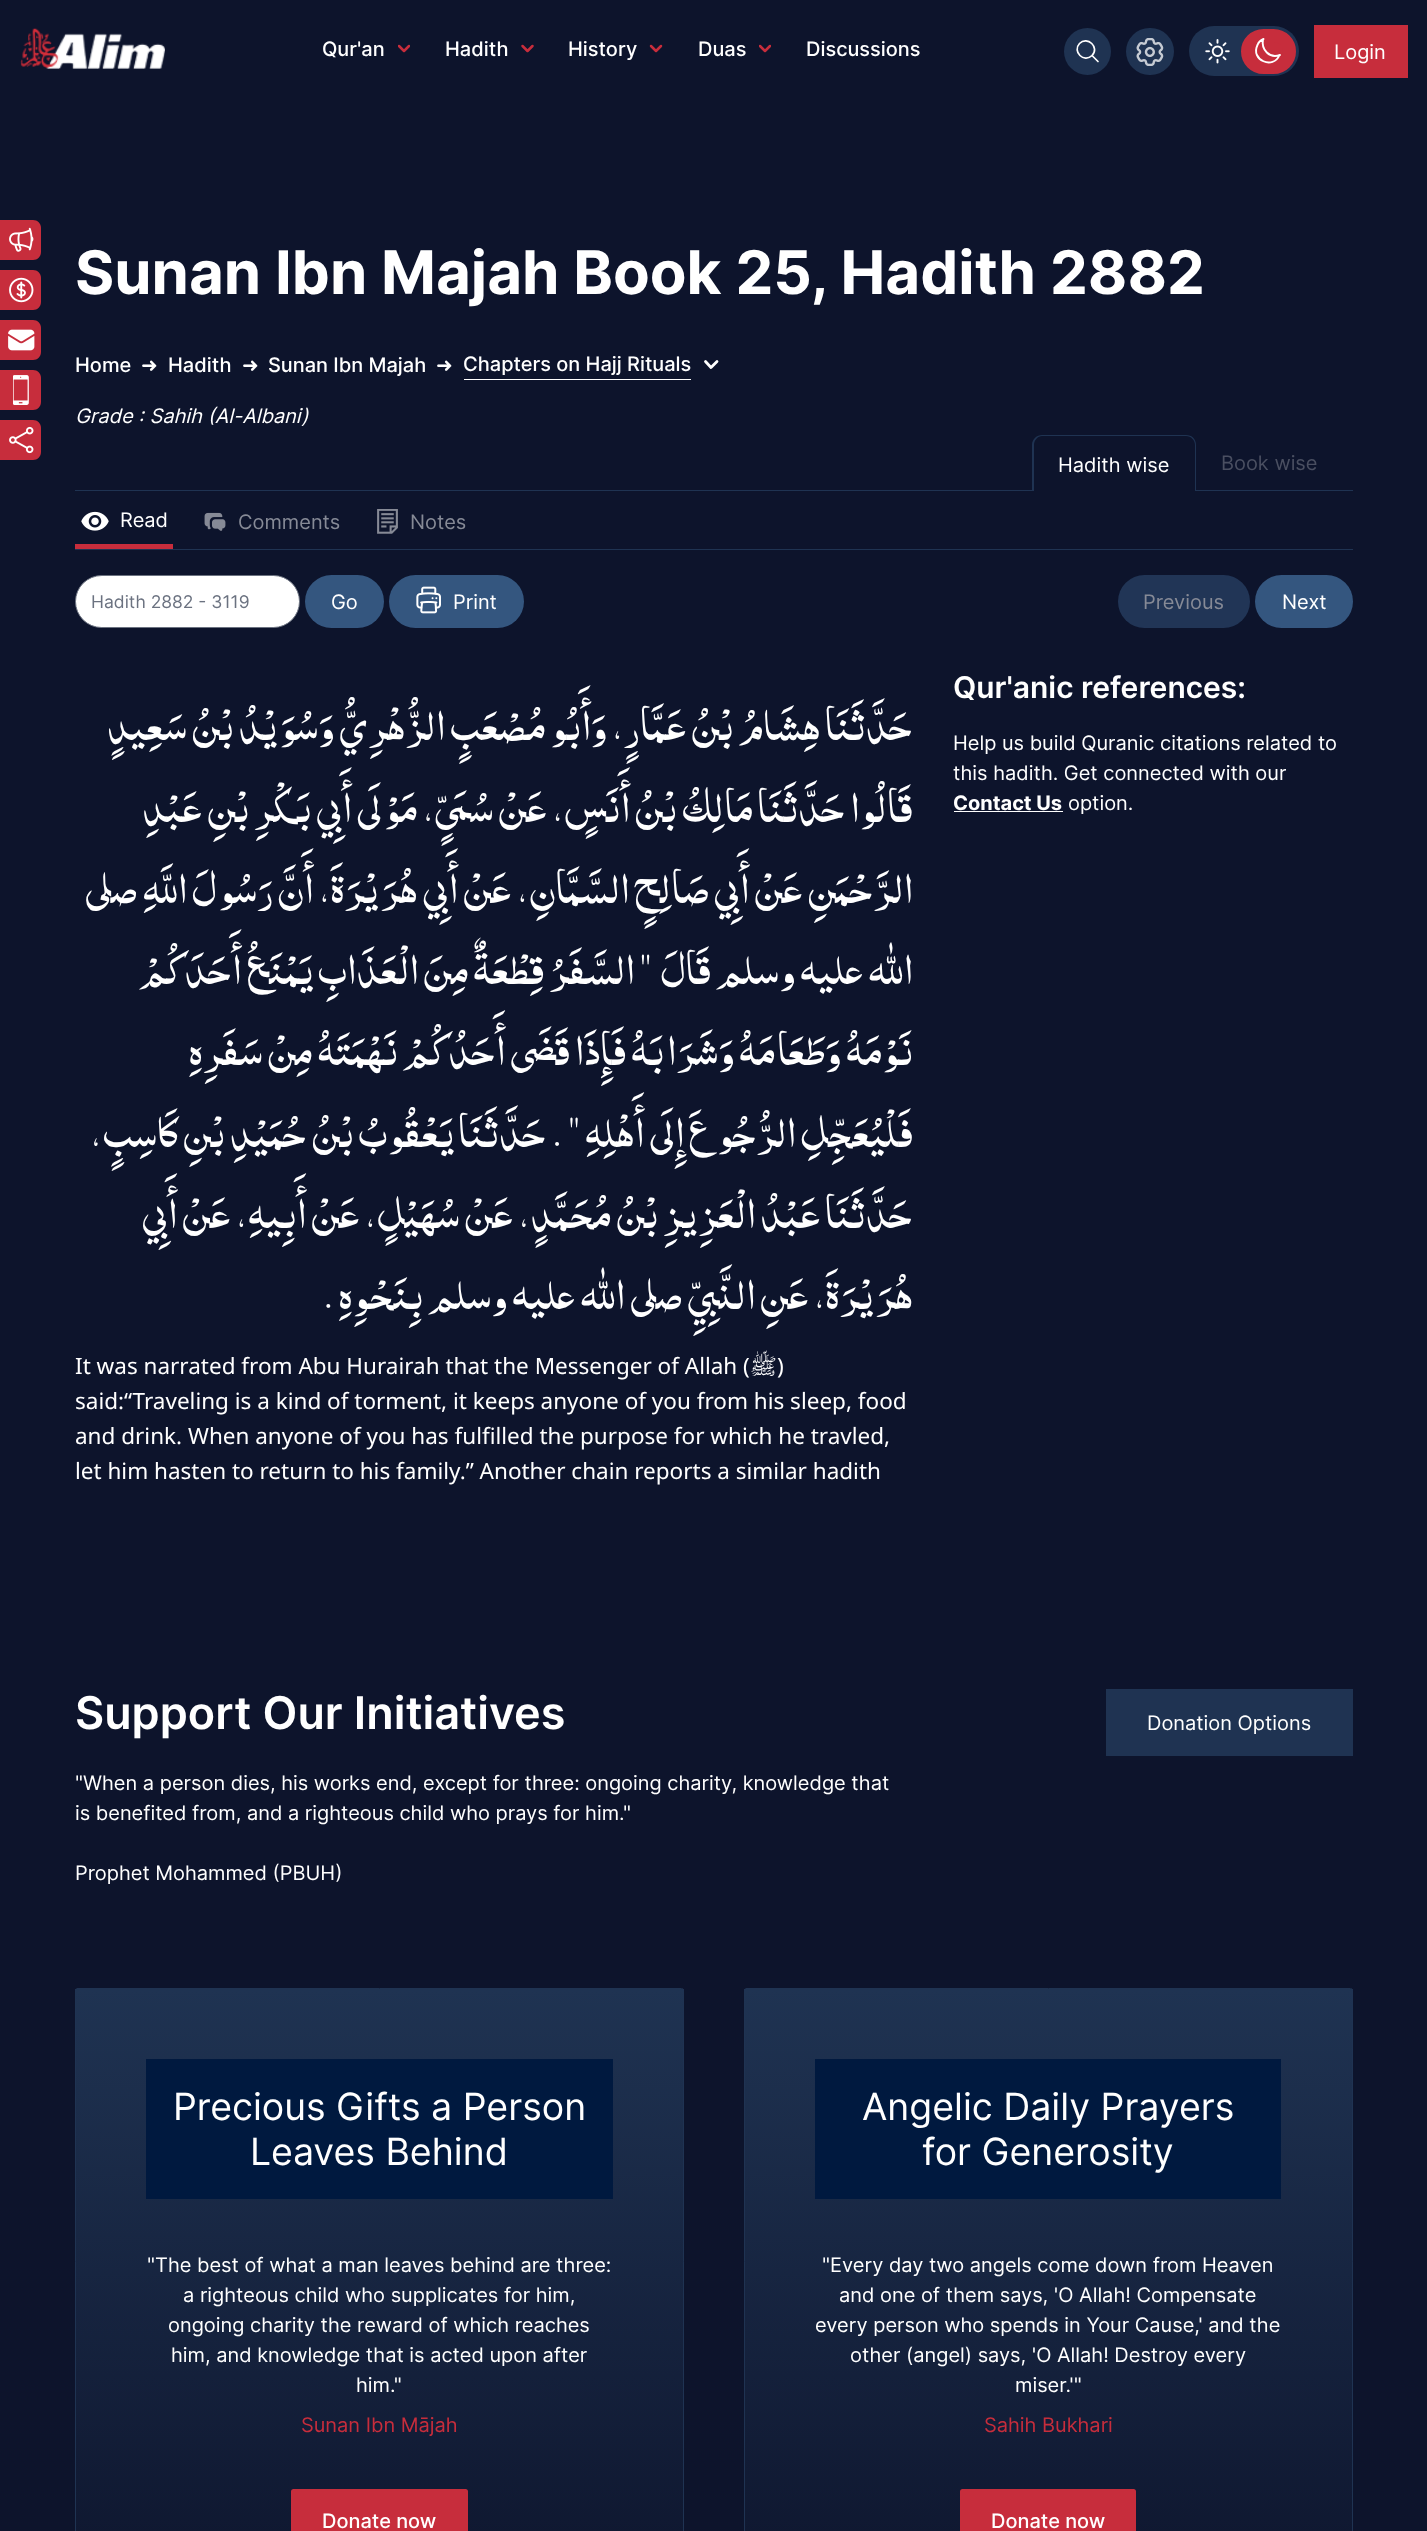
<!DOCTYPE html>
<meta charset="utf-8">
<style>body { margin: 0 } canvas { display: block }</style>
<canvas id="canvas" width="1427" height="2531"></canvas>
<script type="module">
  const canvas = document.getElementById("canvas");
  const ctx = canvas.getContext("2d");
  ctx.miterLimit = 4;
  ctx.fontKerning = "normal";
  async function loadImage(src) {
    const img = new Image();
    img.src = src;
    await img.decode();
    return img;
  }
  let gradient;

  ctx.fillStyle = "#0d142c";
  ctx.fillRect(0, 0, 1427, 2531);
  ctx.drawImage(await loadImage("img1.png"), 20, 28, 145, 41);
  ctx.font = "500 20px Inter";
  ctx.fillStyle = "#ffffff";
  ctx.fillText("Qur'an", 322, 56);
  ctx.save();
  ctx.beginPath();
  ctx.rect(398, 43, 12, 12);
  ctx.clip();
  ctx.beginPath();
  ctx.moveTo(399, 46);
  ctx.lineTo(404, 51);
  ctx.lineTo(409, 46);
  ctx.strokeStyle = "#c72d3c";
  ctx.lineWidth = 2.5;
  ctx.lineCap = "round";
  ctx.lineJoin = "round";
  ctx.stroke();
  ctx.restore();
  ctx.fillText("Hadith", 445, 56);
  ctx.beginPath();
  ctx.moveTo(522.5, 46);
  ctx.lineTo(527.5, 51);
  ctx.lineTo(532.5, 46);
  ctx.strokeStyle = "#c72d3c";
  ctx.lineWidth = 2.5;
  ctx.lineCap = "round";
  ctx.lineJoin = "round";
  ctx.stroke();
  ctx.fillText("History", 568, 56);
  ctx.beginPath();
  ctx.moveTo(651, 46);
  ctx.lineTo(656, 51);
  ctx.lineTo(661, 46);
  ctx.stroke();
  ctx.fillText("Duas", 698, 56);
  ctx.save();
  ctx.beginPath();
  ctx.rect(759, 43, 12, 12);
  ctx.clip();
  ctx.beginPath();
  ctx.moveTo(760, 46);
  ctx.lineTo(765, 51);
  ctx.lineTo(770, 46);
  ctx.stroke();
  ctx.restore();
  ctx.fillText("Discussions", 806, 56);
  ctx.fillStyle = "#1f3352";
  ctx.beginPath();
  ctx.arc(1087.5, 51.5, 23.5, 0, Math.PI * 2);
  ctx.fill();
  ctx.beginPath();
  ctx.moveTo(1098, 61.5);
  ctx.lineTo(1092, 55.5);
  ctx.moveTo(1092, 55.5);
  ctx.bezierCurveTo(1100, 47.5, 1087.5, 35.5, 1079.5, 43.5);
  ctx.bezierCurveTo(1072, 51.5, 1084, 63.5, 1092, 55.5);
  ctx.closePath();
  ctx.strokeStyle = "#ffffff";
  ctx.lineWidth = 1.7;
  ctx.stroke();
  ctx.beginPath();
  ctx.roundRect(1126, 28, 48, 47, 23.5);
  ctx.fill();
  ctx.drawImage(await loadImage("img2.png"), 1136, 38, 28, 28);
  ctx.beginPath();
  ctx.roundRect(1189, 26, 110, 50, 25);
  ctx.fill();
  ctx.fillStyle = "#c72d3c";
  ctx.beginPath();
  ctx.roundRect(1247.5, 35.5, 42, 32, 16);
  ctx.fill();
  ctx.strokeStyle = "#c72d3c";
  ctx.lineWidth = 13;
  ctx.lineJoin = "miter";
  ctx.stroke();
  ctx.drawImage(await loadImage("img3.png"), 1205, 39, 25, 25);
  ctx.beginPath();
  ctx.moveTo(1280, 55);
  ctx.bezierCurveTo(1269.5, 59, 1261, 49.5, 1263, 39.5);
  ctx.lineTo(1263.5, 39);
  ctx.bezierCurveTo(1261, 40, 1258.5, 42, 1257.5, 45);
  ctx.bezierCurveTo(1250, 60, 1273.5, 70, 1279.5, 55);
  ctx.closePath();
  ctx.strokeStyle = "#ffffff";
  ctx.lineWidth = 1.9;
  ctx.lineJoin = "round";
  ctx.stroke();
  ctx.fillRect(1314, 25, 94, 53);
  ctx.font = "20px Inter";
  ctx.fillStyle = "#ffffff";
  ctx.fillText("Login", 1334, 59);
  ctx.fillStyle = "#c72d3c";
  ctx.beginPath();
  ctx.moveTo(-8, 220);
  ctx.lineTo(33, 220);
  ctx.bezierCurveTo(37.5, 220, 41, 223.5, 41, 228);
  ctx.lineTo(41, 252);
  ctx.bezierCurveTo(41, 256.5, 37.5, 260, 33, 260);
  ctx.lineTo(-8, 260);
  ctx.closePath();
  ctx.fill();
  ctx.drawImage(await loadImage("img4.png"), 9, 227, 25, 25);
  ctx.beginPath();
  ctx.moveTo(-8, 270);
  ctx.lineTo(33, 270);
  ctx.bezierCurveTo(37.5, 270, 41, 273.5, 41, 278);
  ctx.lineTo(41, 302);
  ctx.bezierCurveTo(41, 306.5, 37.5, 310, 33, 310);
  ctx.lineTo(-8, 310);
  ctx.closePath();
  ctx.fill();
  ctx.drawImage(await loadImage("img5.png"), 9, 277, 25, 26);
  ctx.beginPath();
  ctx.moveTo(-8, 320);
  ctx.lineTo(33, 320);
  ctx.bezierCurveTo(37.5, 320, 41, 323.5, 41, 328);
  ctx.lineTo(41, 352);
  ctx.bezierCurveTo(41, 356.5, 37.5, 360, 33, 360);
  ctx.lineTo(-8, 360);
  ctx.closePath();
  ctx.fill();
  ctx.drawImage(await loadImage("img6.png"), 8, 329, 27, 22);
  ctx.beginPath();
  ctx.moveTo(-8, 370);
  ctx.lineTo(33, 370);
  ctx.bezierCurveTo(37.5, 370, 41, 373.5, 41, 378);
  ctx.lineTo(41, 402);
  ctx.bezierCurveTo(41, 406.5, 37.5, 410, 33, 410);
  ctx.lineTo(-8, 410);
  ctx.closePath();
  ctx.fill();
  ctx.drawImage(await loadImage("img7.png"), 13, 375, 16, 30);
  ctx.beginPath();
  ctx.moveTo(-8, 420);
  ctx.lineTo(33, 420);
  ctx.bezierCurveTo(37.5, 420, 41, 423.5, 41, 428);
  ctx.lineTo(41, 452);
  ctx.bezierCurveTo(41, 456.5, 37.5, 460, 33, 460);
  ctx.lineTo(-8, 460);
  ctx.closePath();
  ctx.fill();
  ctx.drawImage(await loadImage("img8.png"), 9, 426, 25, 28);
  ctx.font = "bold 60px Inter";
  ctx.fillStyle = "#ffffff";
  ctx.fillText("Sunan Ibn Majah Book 25, Hadith 2882", 75, 294);
  ctx.font = "500 20px Inter";
  ctx.fillText("Home", 75, 372);
  ctx.font = "20px DejaVu Sans";
  ctx.fillText("➜", 141, 372);
  ctx.font = "500 20px Inter";
  ctx.fillText("Hadith", 168, 372);
  ctx.font = "20px DejaVu Sans";
  ctx.fillText("➜", 242, 372);
  ctx.font = "500 20px Inter";
  ctx.fillText("Sunan Ibn Majah", 268, 372);
  ctx.font = "20px DejaVu Sans";
  ctx.fillText("➜", 436, 372);
  ctx.fillRect(464, 379, 227, 1);
  ctx.font = "500 20px Inter";
  ctx.fillText("Chapters on Hajj Rituals", 463, 371);
  ctx.beginPath();
  ctx.moveTo(705.5, 361.5);
  ctx.lineTo(711, 367.5);
  ctx.lineTo(717, 361.5);
  ctx.lineWidth = 2.8;
  ctx.stroke();
  ctx.font = "italic 20px Inter";
  ctx.fillText("Grade : Sahih (Al-Albani)", 75, 423);
  ctx.fillStyle = "#1f3352";
  ctx.fillRect(75, 490, 958, 1);
  ctx.beginPath();
  ctx.moveTo(1042, 435);
  ctx.lineTo(1186, 435);
  ctx.bezierCurveTo(1192, 435, 1196, 439, 1196, 445);
  ctx.lineTo(1196, 491);
  ctx.lineTo(1032, 491);
  ctx.lineTo(1032, 445);
  ctx.bezierCurveTo(1032, 439, 1037, 435, 1042, 435);
  ctx.closePath();
  ctx.moveTo(1042, 436);
  ctx.lineTo(1186, 436);
  ctx.bezierCurveTo(1191, 436, 1195, 440, 1195, 445);
  ctx.lineTo(1195, 491);
  ctx.lineTo(1034, 491);
  ctx.lineTo(1034, 445);
  ctx.bezierCurveTo(1034, 440, 1038, 436, 1042, 436);
  ctx.closePath();
  ctx.fill("evenodd");
  ctx.font = "20px Inter";
  ctx.fillStyle = "#ffffff";
  ctx.fillText("Hadith wise", 1058, 472);
  ctx.fillStyle = "#1f3352";
  ctx.fillRect(1196, 490, 157, 1);
  ctx.fillStyle = "#4a4f61";
  ctx.fillText("Book wise", 1221, 470);
  ctx.fillStyle = "#1f3352";
  ctx.fillRect(75, 549, 1278, 1);
  ctx.fillStyle = "#c72d3c";
  ctx.fillRect(75, 544, 98, 5);
  ctx.drawImage(await loadImage("img9.png"), 81, 511, 28, 20);
  ctx.fillStyle = "#ffffff";
  ctx.fillText("Read", 120, 527);
  ctx.drawImage(await loadImage("img10.png"), 204, 512, 22, 19);
  ctx.fillStyle = "#868a96";
  ctx.fillText("Comments", 238, 529);
  ctx.drawImage(await loadImage("img11.png"), 377, 509, 21, 25);
  ctx.fillText("Notes", 410, 529);
  ctx.fillStyle = "#ffffff";
  ctx.beginPath();
  ctx.roundRect(75.5, 575.5, 224, 52, 26);
  ctx.fill();
  ctx.strokeStyle = "#6b7280";
  ctx.lineWidth = 1;
  ctx.lineJoin = "miter";
  ctx.stroke();
  ctx.font = "17.5px Inter";
  ctx.fillStyle = "#6b7280";
  ctx.fillText("Hadith 2882 - 3119", 91, 608);
  ctx.fillStyle = "#34567f";
  ctx.beginPath();
  ctx.roundRect(305, 575, 79, 53, 26.5);
  ctx.fill();
  ctx.font = "20px Inter";
  ctx.fillStyle = "#ffffff";
  ctx.fillText("Go", 331, 609);
  ctx.fillStyle = "#34567f";
  ctx.beginPath();
  ctx.roundRect(389, 575, 135, 53, 26.5);
  ctx.fill();
  ctx.drawImage(await loadImage("img12.png"), 416, 586, 25, 28);
  ctx.fillStyle = "#ffffff";
  ctx.fillText("Print", 453, 609);
  ctx.fillStyle = "#213556";
  ctx.beginPath();
  ctx.roundRect(1118, 575, 132, 53, 26.5);
  ctx.fill();
  ctx.fillStyle = "#868a96";
  ctx.fillText("Previous", 1143, 609);
  ctx.fillStyle = "#34567f";
  ctx.beginPath();
  ctx.roundRect(1255, 575, 98, 53, 26.5);
  ctx.fill();
  ctx.fillStyle = "#ffffff";
  ctx.fillText("Next", 1282, 609);
  ctx.direction = "rtl";
  ctx.font = "45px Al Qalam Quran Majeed";
  ctx.fillText("حَدَّثَنَا هِشَامُ بْنُ عَمَّارٍ، وَأَبُو مُصْعَبٍ الزُّهْرِيُّ وَسُوَيْدُ بْنُ سَعِيدٍ", 913, 740);
  ctx.fillText("قَالُوا حَدَّثَنَا مَالِكُ بْنُ أَنَسٍ، عَنْ سُمَىٍّ، مَوْلَى أَبِي بَكْرِ بْنِ عَبْدِ", 913, 822);
  ctx.fillText("الرَّحْمَنِ عَنْ أَبِي صَالِحٍ السَّمَّانِ، عَنْ أَبِي هُرَيْرَةَ، أَنَّ رَسُولَ اللَّهِ صلى", 913, 903);
  ctx.fillText("الله عليه وسلم قَالَ  \" السَّفَرُ قِطْعَةٌ مِنَ الْعَذَابِ يَمْنَعُ أَحَدَكُمْ", 913, 984);
  ctx.fillText("نَوْمَهُ وَطَعَامَهُ وَشَرَابَهُ فَإِذَا قَضَى أَحَدُكُمْ نَهْمَتَهُ مِنْ سَفَرِهِ", 913, 1065);
  ctx.fillText("فَلْيُعَجِّلِ الرُّجُوعَ إِلَى أَهْلِهِ \" . حَدَّثَنَا يَعْقُوبُ بْنُ حُمَيْدِ بْنِ كَاسِبٍ،", 913, 1147);
  ctx.fillText("حَدَّثَنَا عَبْدُ الْعَزِيزِ بْنُ مُحَمَّدٍ، عَنْ سُهَيْلٍ، عَنْ أَبِيهِ، عَنْ أَبِي", 913, 1228);
  ctx.fillText("هُرَيْرَةَ، عَنِ النَّبِيِّ صلى الله عليه وسلم بِنَحْوِهِ .", 913, 1309);
  ctx.direction = "ltr";
  ctx.font = "22.5px Noto Sans";
  ctx.fillText("It was narrated from Abu Hurairah that the Messenger of Allah (", 75, 1374);
  ctx.direction = "rtl";
  ctx.font = "22.5px Lateef";
  ctx.fillText("ﷺ", 777, 1374);
  ctx.direction = "ltr";
  ctx.font = "22.5px Noto Sans";
  ctx.fillText(")", 777, 1374);
  ctx.fillText("said:“Traveling is a kind of torment, it keeps anyone of you from his sleep, food", 75, 1409);
  ctx.fillText("and drink. When anyone of you has fulfilled the purpose for which he travled,", 75, 1444);
  ctx.fillText("let him hasten to return to his family.” Another chain reports a similar hadith", 75, 1479);
  ctx.font = "600 30px Inter";
  ctx.fillText("Qur'anic references:", 953, 698);
  ctx.font = "20px Inter";
  ctx.fillText("Help us build Quranic citations related to", 953, 750);
  ctx.fillText("this hadith. Get connected with our", 953, 780);
  ctx.font = "bold 20px Inter";
  ctx.fillText("Contact Us", 953, 810);
  ctx.fillRect(954, 811, 109, 1);
  ctx.font = "20px Inter";
  ctx.fillText("option.", 1068, 810);
  ctx.font = "600 45px Inter";
  ctx.fillText("Support Our Initiatives", 75, 1729);
  ctx.font = "20px Inter";
  ctx.fillText("\"When a person dies, his works end, except for three: ongoing charity, knowledge that", 75, 1790);
  ctx.fillText("is benefited from, and a righteous child who prays for him.\"", 75, 1820);
  ctx.fillText("Prophet Mohammed (PBUH)", 75, 1880);
  ctx.fillStyle = "#1f3352";
  ctx.fillRect(1106, 1689, 247, 67);
  ctx.fillStyle = "#ffffff";
  ctx.fillText("Donation Options", 1147, 1730);
  gradient = ctx.createLinearGradient(379, 1989, 379, 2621);
  gradient.addColorStop(0, "#1f3352");
  gradient.addColorStop(1, "#0d142c");
  ctx.fillStyle = gradient;
  ctx.fillRect(75, 1989, 609, 542);
  ctx.beginPath();
  ctx.roundRect(75.5, 1988.5, 608, 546, 2);
  ctx.strokeStyle = "#1f3352";
  ctx.stroke();
  ctx.fillStyle = "#00193f";
  ctx.fillRect(146, 2059, 467, 140);
  ctx.font = "37.5px Inter";
  ctx.fillStyle = "#ffffff";
  ctx.fillText("Precious Gifts a Person", 173, 2120);
  ctx.fillText("Leaves Behind", 250, 2165);
  ctx.font = "20px Inter";
  ctx.fillText("\"The best of what a man leaves behind are three:", 147, 2272);
  ctx.fillText("a righteous child who supplicates for him,", 183, 2302);
  ctx.fillText("ongoing charity the reward of which reaches", 168, 2332);
  ctx.fillText("him, and knowledge that is acted upon after", 171, 2362);
  ctx.fillText("him.\"", 356, 2392);
  ctx.fillStyle = "#c72d3c";
  ctx.fillText("Sunan Ibn Mājah", 301, 2432);
  ctx.beginPath();
  ctx.roundRect(291, 2489, 177, 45, 2.5);
  ctx.fill();
  ctx.font = "500 20px Inter";
  ctx.fillStyle = "#ffffff";
  ctx.fillText("Donate now", 322, 2528);
  gradient = ctx.createLinearGradient(1048, 1989, 1048, 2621);
  gradient.addColorStop(0, "#1f3352");
  gradient.addColorStop(1, "#0d142c");
  ctx.fillStyle = gradient;
  ctx.fillRect(744, 1989, 609, 542);
  ctx.beginPath();
  ctx.roundRect(744.5, 1988.5, 608, 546, 2);
  ctx.stroke();
  ctx.fillStyle = "#00193f";
  ctx.fillRect(815, 2059, 466, 140);
  ctx.font = "37.5px Inter";
  ctx.fillStyle = "#ffffff";
  ctx.fillText("Angelic Daily Prayers", 862, 2120);
  ctx.fillText("for Generosity", 922, 2165);
  ctx.font = "20px Inter";
  ctx.fillText("\"Every day two angels come down from Heaven", 822, 2272);
  ctx.fillText("and one of them says, 'O Allah! Compensate", 839, 2302);
  ctx.fillText("every person who spends in Your Cause,' and the", 815, 2332);
  ctx.fillText("other (angel) says, 'O Allah! Destroy every", 850, 2362);
  ctx.fillText("miser.'\"", 1015, 2392);
  ctx.fillStyle = "#c72d3c";
  ctx.fillText("Sahih Bukhari", 984, 2432);
  ctx.beginPath();
  ctx.roundRect(960, 2489, 176, 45, 2.5);
  ctx.fill();
  ctx.font = "500 20px Inter";
  ctx.fillStyle = "#ffffff";
  ctx.fillText("Donate now", 991, 2528);
</script>
